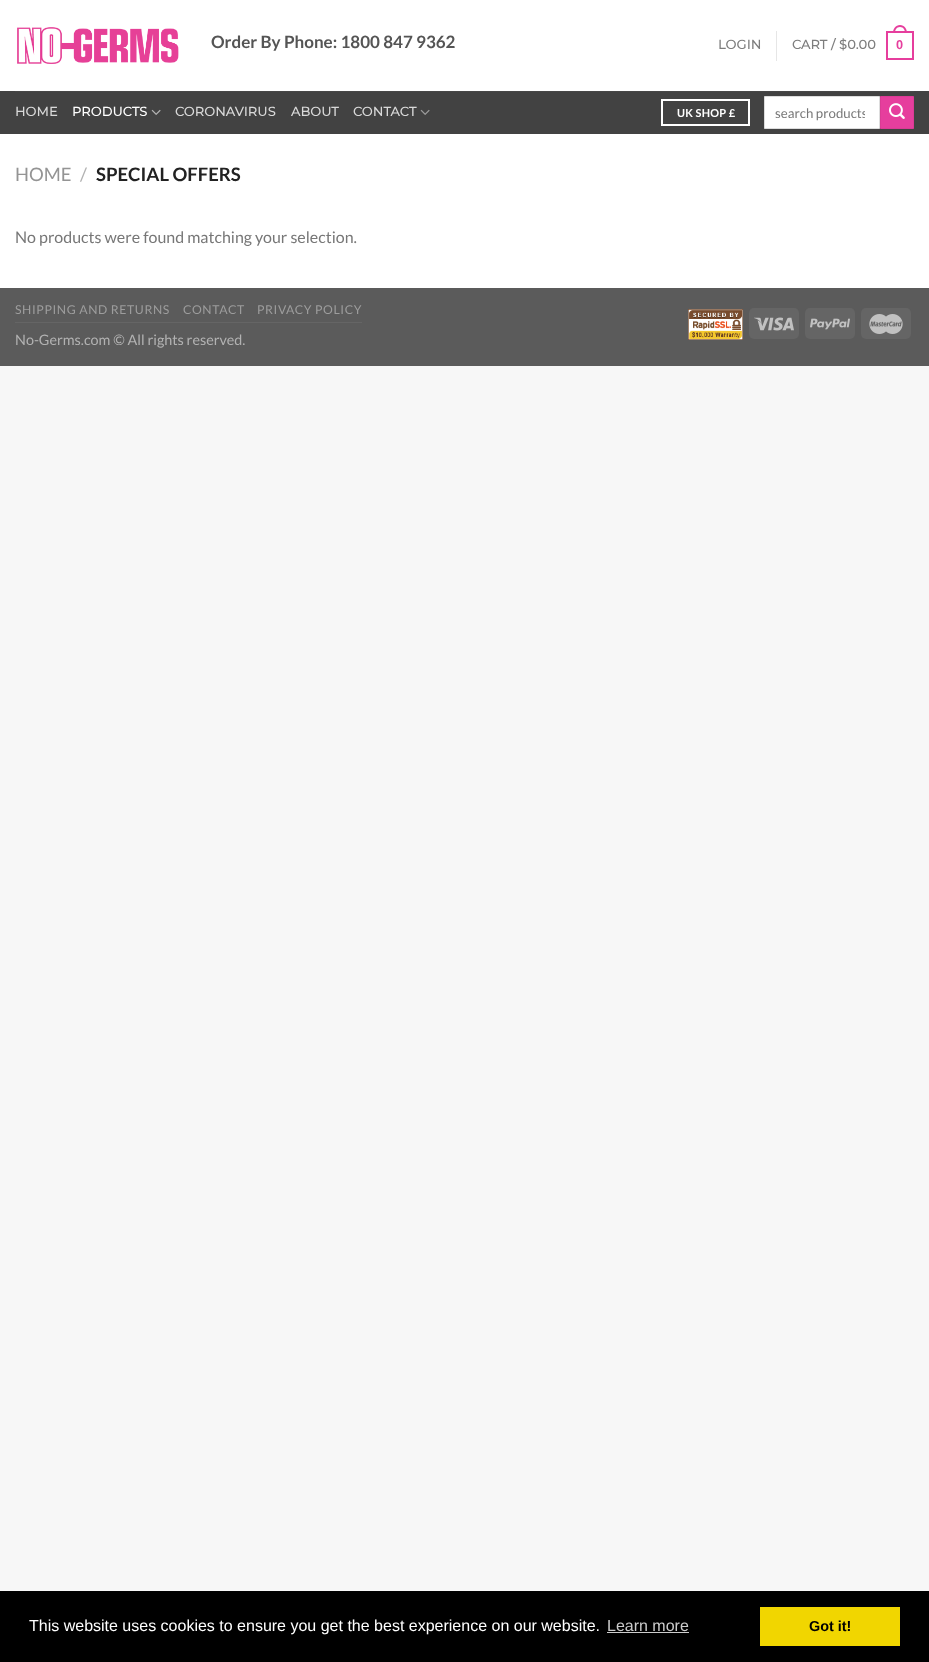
<!DOCTYPE html>
<meta charset="utf-8">
<style>body { margin: 0 } canvas { display: block }</style>
<canvas id="canvas" width="929" height="1662"></canvas>
<script type="module">
  const canvas = document.getElementById("canvas");
  const ctx = canvas.getContext("2d");
  ctx.miterLimit = 4;
  ctx.fontKerning = "normal";
  async function loadImage(src) {
    const img = new Image();
    img.src = src;
    await img.decode();
    return img;
  }

  ctx.fillStyle = "#f7f7f7";
  ctx.fillRect(0, 0, 929, 1662);
  ctx.fillStyle = "#ffffff";
  ctx.fillRect(0, 0, 929, 288);
  ctx.drawImage(await loadImage("img1.png"), 17, 27, 162, 37);
  ctx.font = "bold 17px Lato";
  ctx.fillStyle = "#555555";
  ctx.fillText("Order By Phone: 1800 847 9362", 211, 48);
  ctx.letterSpacing = "0.25px";
  ctx.font = "bold 12.75px Montserrat";
  ctx.fillStyle = "#7d7d7d";
  ctx.fillText("LOGIN", 718, 49);
  ctx.fillStyle = "#e6e6e6";
  ctx.fillRect(776, 31, 1, 30);
  ctx.fillStyle = "#7d7d7d";
  ctx.fillText("CART / $0.00", 792, 49);
  ctx.strokeStyle = "#e63e9d";
  ctx.lineWidth = 2;
  ctx.strokeRect(887, 32, 26, 27);
  ctx.fillStyle = "#e63e9d";
  ctx.beginPath();
  ctx.moveTo(900, 25);
  ctx.bezierCurveTo(904.5, 25, 907, 29, 907, 33);
  ctx.lineTo(893, 33);
  ctx.bezierCurveTo(893, 29, 895.5, 25, 900, 25);
  ctx.closePath();
  ctx.moveTo(900, 27);
  ctx.bezierCurveTo(903.5, 27, 905, 30, 905, 33);
  ctx.lineTo(895, 33);
  ctx.bezierCurveTo(895, 30, 896.5, 27, 900, 27);
  ctx.closePath();
  ctx.fill("evenodd");
  ctx.font = "bold 12.75px Liberation Sans";
  ctx.fillText("0", 896, 49);
  ctx.fillStyle = "#424242";
  ctx.fillRect(0, 91, 929, 43);
  ctx.fillStyle = "#474747";
  ctx.fillRect(15, 91, 899, 1);
  ctx.font = "bold 12.75px Montserrat";
  ctx.fillStyle = "#d9d9d9";
  ctx.fillText("HOME", 15, 116);
  ctx.fillStyle = "#ffffff";
  ctx.fillText("PRODUCTS", 72, 116);
  ctx.drawImage(await loadImage("img2.png"), 151, 109, 10, 6);
  ctx.fillStyle = "#d9d9d9";
  ctx.fillText("CORONAVIRUS", 175, 116);
  ctx.fillText("ABOUT", 291, 116);
  ctx.fillText("CONTACT", 353, 116);
  ctx.drawImage(await loadImage("img3.png"), 420, 109, 10, 6);
  ctx.strokeStyle = "#ffffff";
  ctx.strokeRect(662, 100, 87, 25);
  ctx.font = "bold 11px Lato";
  ctx.fillStyle = "#ffffff";
  ctx.fillText("UK SHOP £", 677, 117);
  ctx.beginPath();
  ctx.rect(764.5, 96.5, 115, 32);
  ctx.fill();
  ctx.strokeStyle = "#dddddd";
  ctx.lineWidth = 1;
  ctx.stroke();
  ctx.save();
  ctx.beginPath();
  ctx.rect(775, 105, 90, 16);
  ctx.clip();
  ctx.letterSpacing = "0px";
  ctx.font = "13.25px Lato";
  ctx.fillStyle = "#777777";
  ctx.fillText("search products", 775, 118);
  ctx.restore();
  ctx.fillStyle = "#e63e9d";
  ctx.beginPath();
  ctx.rect(880.5, 96.5, 33, 32);
  ctx.fill();
  ctx.strokeStyle = "#db3b95";
  ctx.stroke();
  ctx.drawImage(await loadImage("img4.png"), 889, 103, 16, 16);
  ctx.letterSpacing = "0px";
  ctx.font = "18.5px Lato";
  ctx.fillStyle = "#949494";
  ctx.fillText("HOME", 15, 181);
  ctx.fillStyle = "#b2b2b2";
  ctx.fillText("/", 80, 181);
  ctx.font = "bold 18.5px Lato";
  ctx.fillStyle = "#222222";
  ctx.fillText("SPECIAL OFFERS", 96, 181);
  ctx.font = "16px Lato";
  ctx.fillStyle = "#777777";
  ctx.fillText("No products were found matching your selection.", 15, 243);
  ctx.fillStyle = "#5b5b5b";
  ctx.fillRect(0, 288, 929, 78);
  ctx.fillStyle = "#656565";
  ctx.fillRect(15, 322, 347, 1);
  ctx.letterSpacing = "0.6px";
  ctx.font = "12.25px Lato";
  ctx.fillStyle = "#9d9d9d";
  ctx.fillText("SHIPPING AND RETURNS", 15, 314);
  ctx.fillText("CONTACT", 183, 314);
  ctx.fillText("PRIVACY POLICY", 257, 314);
  ctx.letterSpacing = "0px";
  ctx.font = "14.4px Lato";
  ctx.fillStyle = "#b2b2b2";
  ctx.fillText("No-Germs.com © All rights reserved.", 15, 345);
  ctx.drawImage(await loadImage("img5.png"), 688, 309, 55, 31);
  ctx.fillStyle = "#656565";
  ctx.beginPath();
  ctx.roundRect(749, 308, 50, 31, 5);
  ctx.fill();
  ctx.drawImage(await loadImage("img6.png"), 754, 317, 40, 14);
  ctx.beginPath();
  ctx.roundRect(805, 308, 50, 31, 5);
  ctx.fill();
  ctx.drawImage(await loadImage("img7.png"), 810, 318, 40, 12);
  ctx.beginPath();
  ctx.roundRect(861, 308, 50, 31, 5);
  ctx.fill();
  ctx.drawImage(await loadImage("img8.png"), 869, 314, 34, 20);
  ctx.fillStyle = "#000000";
  ctx.fillRect(0, 1591, 929, 71);
  ctx.font = "16px Liberation Sans";
  ctx.fillStyle = "#ffffff";
  ctx.fillText("This website uses cookies to ensure you get the best experience on our website.", 29, 1631);
  ctx.fillStyle = "#cccccc";
  ctx.fillText("Learn more", 607, 1631);
  ctx.fillRect(607, 1632, 82, 1);
  ctx.fillStyle = "#f1d600";
  ctx.fillRect(760, 1607, 140, 39);
  ctx.font = "bold 14.4px Liberation Sans";
  ctx.fillStyle = "#000000";
  ctx.fillText("Got it!", 809, 1631);
</script>
